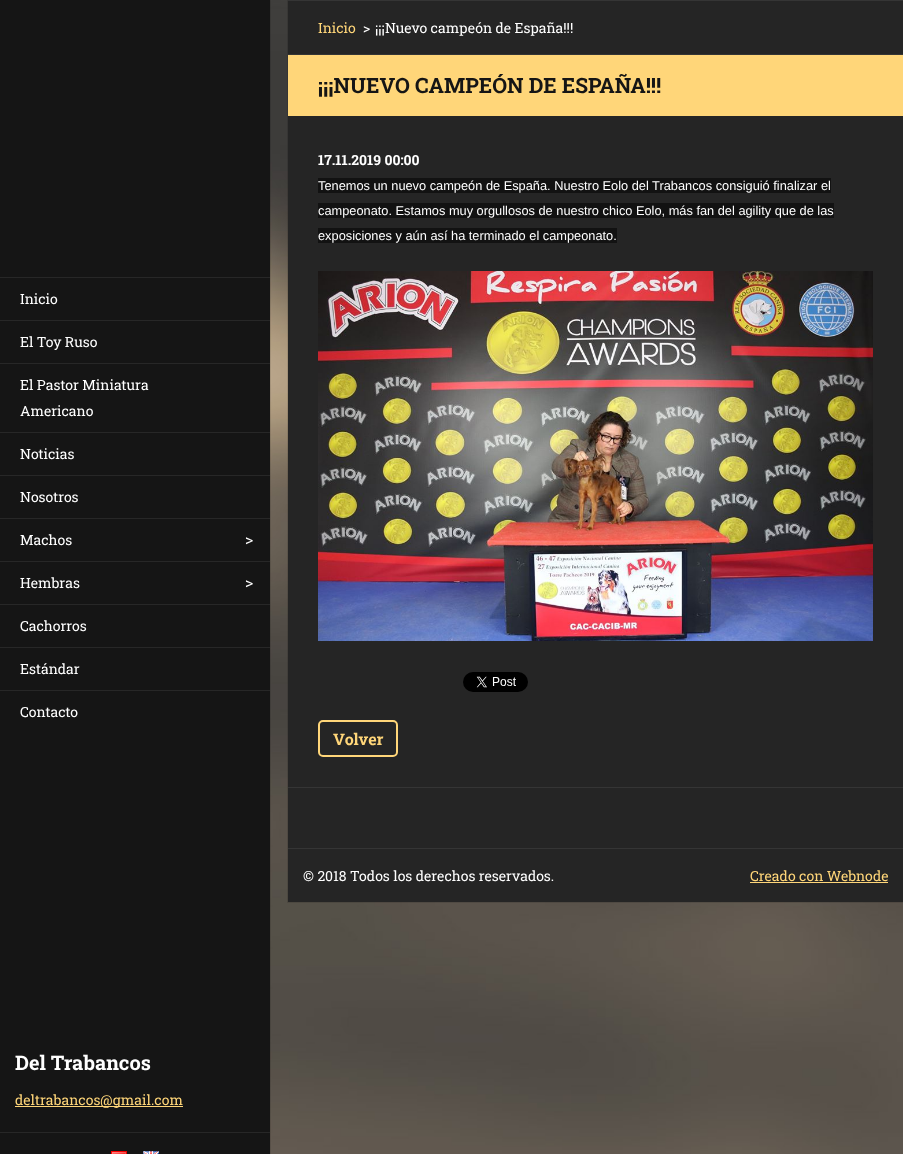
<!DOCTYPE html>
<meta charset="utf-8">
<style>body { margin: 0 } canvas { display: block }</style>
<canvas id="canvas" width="903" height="1154"></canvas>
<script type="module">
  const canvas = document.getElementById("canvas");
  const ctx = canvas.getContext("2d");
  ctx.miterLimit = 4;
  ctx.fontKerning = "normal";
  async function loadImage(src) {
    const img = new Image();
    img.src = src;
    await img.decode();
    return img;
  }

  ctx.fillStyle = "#ffffff";
  ctx.fillRect(0, 0, 903, 1154);
  ctx.drawImage(await loadImage("img1.png"), 270, 0, 633, 1154);
  ctx.fillStyle = "#151515";
  ctx.fillRect(0, 0, 270, 1154);
  ctx.strokeStyle = "rgba(0, 0, 0, 0.1)";
  ctx.strokeRect(-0.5, -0.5, 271, 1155);
  ctx.fillStyle = "#272727";
  ctx.fillRect(0, 277, 270, 1);
  ctx.font = "14px Roboto Slab";
  ctx.fillStyle = "#ffffff";
  ctx.fillText("Inicio", 20, 304);
  ctx.fillStyle = "#272727";
  ctx.fillRect(0, 320, 270, 1);
  ctx.fillStyle = "#ffffff";
  ctx.fillText("El Toy Ruso", 20, 347);
  ctx.fillStyle = "#272727";
  ctx.fillRect(0, 363, 270, 1);
  ctx.fillStyle = "#ffffff";
  ctx.fillText("El Pastor Miniatura", 20, 390);
  ctx.fillText("Americano", 20, 416);
  ctx.fillStyle = "#272727";
  ctx.fillRect(0, 432, 270, 1);
  ctx.fillStyle = "#ffffff";
  ctx.fillText("Noticias", 20, 459);
  ctx.fillStyle = "#272727";
  ctx.fillRect(0, 475, 270, 1);
  ctx.fillStyle = "#ffffff";
  ctx.fillText("Nosotros", 20, 502);
  ctx.fillStyle = "#272727";
  ctx.fillRect(0, 518, 270, 1);
  ctx.fillStyle = "#ffffff";
  ctx.fillText("Machos", 20, 545);
  ctx.font = "16px Roboto Slab";
  ctx.fillText(">", 245, 545);
  ctx.fillStyle = "#272727";
  ctx.fillRect(0, 561, 270, 1);
  ctx.font = "14px Roboto Slab";
  ctx.fillStyle = "#ffffff";
  ctx.fillText("Hembras", 20, 588);
  ctx.font = "16px Roboto Slab";
  ctx.fillText(">", 245, 588);
  ctx.fillStyle = "#272727";
  ctx.fillRect(0, 604, 270, 1);
  ctx.font = "14px Roboto Slab";
  ctx.fillStyle = "#ffffff";
  ctx.fillText("Cachorros", 20, 631);
  ctx.fillStyle = "#272727";
  ctx.fillRect(0, 647, 270, 1);
  ctx.fillStyle = "#ffffff";
  ctx.fillText("Estándar", 20, 674);
  ctx.fillStyle = "#272727";
  ctx.fillRect(0, 690, 270, 1);
  ctx.fillStyle = "#ffffff";
  ctx.fillText("Contacto", 20, 717);
  ctx.font = "bold 20px Roboto Slab";
  ctx.fillText("Del Trabancos", 15, 1070);
  ctx.fillStyle = "#ffd679";
  ctx.fillRect(15, 1106, 168, 1);
  ctx.font = "14px Roboto Slab";
  ctx.fillText("deltrabancos@gmail.com", 15, 1105);
  ctx.fillStyle = "#272727";
  ctx.fillRect(0, 1132, 270, 1);
  ctx.drawImage(await loadImage("img2.png"), 111, 1151, 16, 3);
  ctx.drawImage(await loadImage("img3.png"), 143, 1151, 16, 3);
  ctx.fillStyle = "#252525";
  ctx.fillRect(288, 1, 615, 53);
  ctx.fillStyle = "#353535";
  ctx.fillRect(288, 0, 615, 1);
  ctx.strokeRect(287.5, -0.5, 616, 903);
  ctx.fillStyle = "#ffd679";
  ctx.fillText("Inicio", 318, 33);
  ctx.fillStyle = "#ffffff";
  ctx.fillText(">", 363, 33);
  ctx.fillText("¡¡¡Nuevo campeón de España!!!", 375, 33);
  ctx.fillStyle = "#353535";
  ctx.fillRect(288, 54, 615, 1);
  ctx.fillStyle = "#ffd679";
  ctx.fillRect(288, 55, 615, 61);
  ctx.font = "bold 21px Roboto Slab";
  ctx.fillStyle = "#151515";
  ctx.fillText("¡¡¡NUEVO CAMPEÓN DE ESPAÑA!!!", 318, 93);
  ctx.fillStyle = "#252525";
  ctx.fillRect(288, 116, 615, 671);
  ctx.font = "bold 14px Roboto Slab";
  ctx.fillStyle = "#ffffff";
  ctx.fillText("17.11.2019 00:00", 318, 165);
  ctx.fillStyle = "#121212";
  ctx.fillRect(318, 178, 513, 15);
  ctx.font = "12.8px Liberation Sans";
  ctx.fillStyle = "#ffffff";
  ctx.fillText("Tenemos un nuevo campeón de España. Nuestro Eolo del Trabancos consiguió finalizar el", 318, 190);
  ctx.fillStyle = "#121212";
  ctx.fillRect(318, 203, 516, 15);
  ctx.fillStyle = "#ffffff";
  ctx.fillText("campeonato. Estamos muy orgullosos de nuestro chico Eolo, más fan del agility que de las", 318, 215);
  ctx.fillStyle = "#121212";
  ctx.fillRect(318, 228, 299, 15);
  ctx.fillStyle = "#ffffff";
  ctx.fillText("exposiciones y aún así ha terminado el campeonato.", 318, 240);
  ctx.drawImage(await loadImage("img4.png"), 318, 271, 555, 370);
  ctx.drawImage(await loadImage("img5.png"), 463, 672, 65, 20);
  ctx.beginPath();
  ctx.roundRect(319, 721, 78, 35, 4);
  ctx.strokeStyle = "#ffd679";
  ctx.lineWidth = 2;
  ctx.stroke();
  ctx.font = "bold 16px Roboto Slab";
  ctx.fillStyle = "#ffd679";
  ctx.fillText("Volver", 333, 745);
  ctx.fillStyle = "#353535";
  ctx.fillRect(288, 787, 615, 1);
  ctx.fillStyle = "#252525";
  ctx.fillRect(288, 788, 615, 60);
  ctx.fillRect(288, 849, 615, 53);
  ctx.fillStyle = "#353535";
  ctx.fillRect(288, 848, 615, 1);
  ctx.font = "14px Roboto Slab";
  ctx.fillStyle = "#ffffff";
  ctx.fillText("© 2018 Todos los derechos reservados.", 303, 881);
  ctx.fillStyle = "#ffd679";
  ctx.fillText("Creado con Webnode", 750, 881);
  ctx.fillRect(750, 882, 138, 1);
</script>
